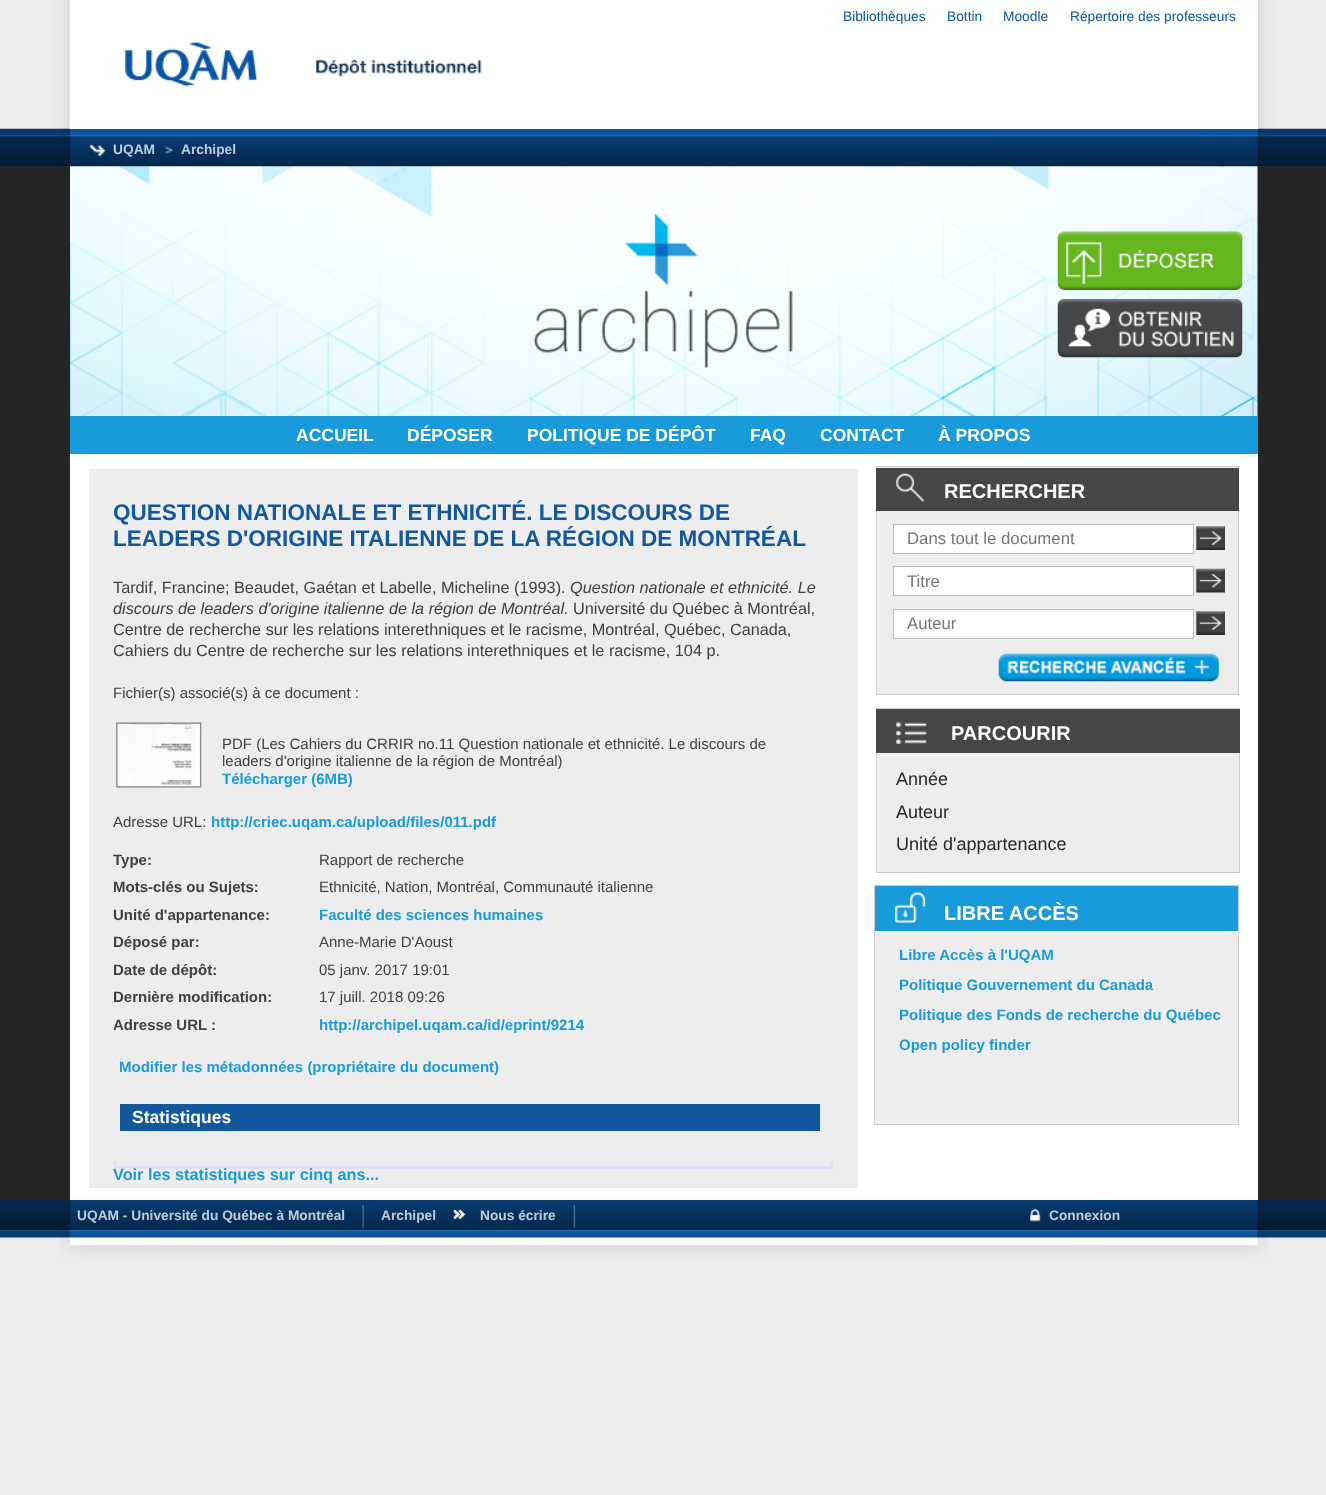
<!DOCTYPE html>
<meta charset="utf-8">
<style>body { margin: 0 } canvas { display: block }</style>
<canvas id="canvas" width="1326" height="1495"></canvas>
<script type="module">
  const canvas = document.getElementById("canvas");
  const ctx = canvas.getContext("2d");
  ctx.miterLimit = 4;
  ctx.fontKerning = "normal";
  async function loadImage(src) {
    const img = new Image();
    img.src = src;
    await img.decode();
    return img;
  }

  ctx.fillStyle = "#ededed";
  ctx.fillRect(0, 0, 1326, 1495);
  ctx.drawImage(await loadImage("img1.png"), 0, 128, 1326, 38);
  ctx.drawImage(await loadImage("img2.png"), 23, 0, 1281, 166);
  ctx.fillStyle = "#ffffff";
  ctx.fillRect(70, 0, 1188, 129);
  ctx.font = "13.75px Liberation Sans";
  ctx.fillStyle = "#0a55a0";
  ctx.fillText("Bibliothèques", 843, 21);
  ctx.fillText("Bottin", 947, 21);
  ctx.fillText("Moodle", 1003, 21);
  ctx.fillText("Répertoire des professeurs", 1070, 21);
  ctx.drawImage(await loadImage("img3.png"), 124, 42, 134, 45);
  ctx.drawImage(await loadImage("img4.png"), 314, 58, 169, 19);
  ctx.drawImage(await loadImage("img5.png"), 70, 142, 36, 15);
  ctx.font = "bold 13.75px Liberation Sans";
  ctx.fillStyle = "#bacddf";
  ctx.fillText("UQAM", 113, 154);
  ctx.drawImage(await loadImage("img6.png"), 165, 146, 8, 8);
  ctx.fillText("Archipel", 181, 154);
  ctx.fillStyle = "#252525";
  ctx.fillRect(0, 166, 1326, 1034);
  ctx.fillStyle = "#282828";
  ctx.fillRect(70, 166, 1188, 250);
  ctx.drawImage(await loadImage("img7.png"), 70, 166, 1188, 250);
  ctx.drawImage(await loadImage("img8.png"), 1057, 231, 186, 59);
  ctx.drawImage(await loadImage("img9.png"), 1057, 298, 186, 60);
  ctx.fillStyle = "#199bdb";
  ctx.fillRect(70, 416, 1188, 38);
  ctx.font = "bold 17.5px Liberation Sans";
  ctx.fillStyle = "#ffffff";
  ctx.fillText("ACCUEIL", 296, 441);
  ctx.fillText("DÉPOSER", 407, 441);
  ctx.fillText("POLITIQUE DE DÉPÔT", 527, 441);
  ctx.fillText("FAQ", 750, 441);
  ctx.fillText("CONTACT", 820, 441);
  ctx.fillText("À PROPOS", 938, 441);
  ctx.fillRect(70, 454, 1188, 746);
  ctx.fillStyle = "#ededed";
  ctx.fillRect(89, 469, 769, 719);
  ctx.font = "bold 22.5px Liberation Sans";
  ctx.fillStyle = "#13579f";
  ctx.fillText("QUESTION NATIONALE ET ETHNICITÉ. LE DISCOURS DE", 113, 520);
  ctx.fillText("LEADERS D'ORIGINE ITALIENNE DE LA RÉGION DE MONTRÉAL", 113, 546);
  ctx.font = "16.25px Liberation Sans";
  ctx.fillStyle = "#404040";
  ctx.fillText("Tardif, Francine; Beaudet, Gaétan et Labelle, Micheline (1993).", 113, 593);
  ctx.font = "italic 16.25px Liberation Sans";
  ctx.fillText("Question nationale et ethnicité. Le", 570, 593);
  ctx.fillText("discours de leaders d'origine italienne de la région de Montréal.", 113, 614);
  ctx.font = "16.25px Liberation Sans";
  ctx.fillText("Université du Québec à Montréal,", 573, 614);
  ctx.fillText("Centre de recherche sur les relations interethniques et le racisme, Montréal, Québec, Canada,", 113, 635);
  ctx.fillText("Cahiers du Centre de recherche sur les relations interethniques et le racisme, 104 p.", 113, 656);
  ctx.font = "15px Liberation Sans";
  ctx.fillText("Fichier(s) associé(s) à ce document :", 113, 698);
  ctx.drawImage(await loadImage("img10.png"), 116, 722, 86, 66);
  ctx.fillText("PDF (Les Cahiers du CRRIR no.11 Question nationale et ethnicité. Le discours de", 222, 749);
  ctx.fillText("leaders d'origine italienne de la région de Montréal)", 222, 766);
  ctx.font = "bold 15px Liberation Sans";
  ctx.fillStyle = "#199bdb";
  ctx.fillText("Télécharger (6MB)", 222, 784);
  ctx.font = "15px Liberation Sans";
  ctx.fillStyle = "#404040";
  ctx.fillText("Adresse URL:", 113, 827);
  ctx.font = "bold 15px Liberation Sans";
  ctx.fillStyle = "#199bdb";
  ctx.fillText("http://criec.uqam.ca/upload/files/011.pdf", 211, 827);
  ctx.fillStyle = "#404040";
  ctx.fillText("Type:", 113, 865);
  ctx.font = "15px Liberation Sans";
  ctx.fillText("Rapport de recherche", 319, 865);
  ctx.font = "bold 15px Liberation Sans";
  ctx.fillText("Mots-clés ou Sujets:", 113, 892);
  ctx.font = "15px Liberation Sans";
  ctx.fillText("Ethnicité, Nation, Montréal, Communauté italienne", 319, 892);
  ctx.font = "bold 15px Liberation Sans";
  ctx.fillText("Unité d'appartenance:", 113, 920);
  ctx.fillStyle = "#199bdb";
  ctx.fillText("Faculté des sciences humaines", 319, 920);
  ctx.fillStyle = "#404040";
  ctx.fillText("Déposé par:", 113, 947);
  ctx.font = "15px Liberation Sans";
  ctx.fillText("Anne-Marie D'Aoust", 319, 947);
  ctx.font = "bold 15px Liberation Sans";
  ctx.fillText("Date de dépôt:", 113, 975);
  ctx.font = "15px Liberation Sans";
  ctx.fillText("05 janv. 2017 19:01", 319, 975);
  ctx.font = "bold 15px Liberation Sans";
  ctx.fillText("Dernière modification:", 113, 1002);
  ctx.font = "15px Liberation Sans";
  ctx.fillText("17 juill. 2018 09:26", 319, 1002);
  ctx.font = "bold 15px Liberation Sans";
  ctx.fillText("Adresse URL :", 113, 1030);
  ctx.fillStyle = "#199bdb";
  ctx.fillText("http://archipel.uqam.ca/id/eprint/9214", 319, 1030);
  ctx.fillText("Modifier les métadonnées (propriétaire du document)", 119, 1072);
  ctx.fillStyle = "#13579f";
  ctx.fillRect(120, 1104, 700, 27);
  ctx.font = "bold 17.5px Liberation Sans";
  ctx.fillStyle = "#ffffff";
  ctx.fillText("Statistiques", 132, 1123);
  ctx.fillStyle = "#e0e0ff";
  ctx.fillRect(830, 1161, 3, 8);
  ctx.fillRect(114, 1166, 719, 3);
  ctx.fillRect(114, 1161, 3, 8);
  ctx.font = "bold 16.25px Liberation Sans";
  ctx.fillStyle = "#199bdb";
  ctx.fillText("Voir les statistiques sur cinq ans...", 113, 1180);
  ctx.fillStyle = "#ededed";
  ctx.fillRect(877, 467, 361, 227);
  ctx.fillStyle = "#cccccc";
  ctx.fillRect(1238, 651, 1, 44);
  ctx.fillRect(876, 694, 363, 1);
  ctx.fillRect(876, 651, 1, 44);
  ctx.drawImage(await loadImage("img11.png"), 998, 653, 221, 29);
  ctx.fillRect(876, 466, 363, 1);
  ctx.fillRect(1238, 466, 1, 185);
  ctx.fillRect(876, 466, 1, 185);
  ctx.fillStyle = "#454647";
  ctx.fillRect(876, 468, 363, 43);
  ctx.drawImage(await loadImage("img12.png"), 896, 473, 28, 29);
  ctx.font = "bold 20px Liberation Sans";
  ctx.fillStyle = "#ffffff";
  ctx.fillText("RECHERCHER", 944, 498);
  ctx.beginPath();
  ctx.rect(893.5, 524.5, 300, 29);
  ctx.fill();
  ctx.strokeStyle = "#bbbbbb";
  ctx.stroke();
  ctx.font = "16.75px Liberation Sans";
  ctx.fillStyle = "#757575";
  ctx.fillText("Dans tout le document", 907, 544);
  ctx.drawImage(await loadImage("img13.png"), 1196, 526, 29, 24);
  ctx.fillStyle = "#ffffff";
  ctx.beginPath();
  ctx.rect(893.5, 566.5, 300, 29);
  ctx.fill();
  ctx.stroke();
  ctx.fillStyle = "#757575";
  ctx.fillText("Titre", 907, 587);
  ctx.drawImage(await loadImage("img14.png"), 1196, 568, 29, 25);
  ctx.fillStyle = "#ffffff";
  ctx.beginPath();
  ctx.rect(893.5, 609.5, 300, 29);
  ctx.fill();
  ctx.stroke();
  ctx.fillStyle = "#757575";
  ctx.fillText("Auteur", 907, 629);
  ctx.drawImage(await loadImage("img13.png"), 1196, 611, 29, 24);
  ctx.fillStyle = "#ededed";
  ctx.fillRect(877, 753, 362, 119);
  ctx.strokeStyle = "#cccccc";
  ctx.strokeRect(876.5, 708.5, 363, 164);
  ctx.fillStyle = "#454647";
  ctx.fillRect(876, 709, 364, 44);
  ctx.drawImage(await loadImage("img15.png"), 896, 722, 31, 22);
  ctx.font = "bold 20px Liberation Sans";
  ctx.fillStyle = "#ffffff";
  ctx.fillText("PARCOURIR", 951, 740);
  ctx.font = "18px Liberation Sans";
  ctx.fillStyle = "#282828";
  ctx.fillText("Année", 896, 785);
  ctx.fillText("Auteur", 896, 818);
  ctx.fillText("Unité d'appartenance", 896, 850);
  ctx.fillStyle = "#ededed";
  ctx.fillRect(875, 931, 363, 193);
  ctx.strokeRect(874.5, 885.5, 364, 239);
  ctx.fillStyle = "#199bdb";
  ctx.fillRect(875, 886, 363, 45);
  ctx.drawImage(await loadImage("img16.png"), 894, 892, 32, 31);
  ctx.font = "bold 20px Liberation Sans";
  ctx.fillStyle = "#ffffff";
  ctx.fillText("LIBRE ACCÈS", 944, 920);
  ctx.font = "bold 15px Liberation Sans";
  ctx.fillStyle = "#199bdb";
  ctx.fillText("Libre Accès à l'UQAM", 899, 960);
  ctx.fillText("Politique Gouvernement du Canada", 899, 990);
  ctx.fillText("Politique des Fonds de recherche du Québec", 899, 1020);
  ctx.fillText("Open policy finder", 899, 1050);
  ctx.drawImage(await loadImage("img17.png"), 0, 1200, 1326, 38);
  ctx.drawImage(await loadImage("img18.png"), 59, 1200, 1209, 57);
  ctx.font = "bold 13.75px Liberation Sans";
  ctx.fillStyle = "#bacddf";
  ctx.fillText("UQAM - Université du Québec à Montréal", 77, 1220);
  ctx.drawImage(await loadImage("img19.png"), 362, 1205, 19, 25);
  ctx.fillText("Archipel", 381, 1220);
  ctx.drawImage(await loadImage("img20.png"), 444, 1209, 28, 21);
  ctx.fillText("Nous écrire", 480, 1220);
  ctx.drawImage(await loadImage("img21.png"), 573, 1205, 3, 23);
  ctx.drawImage(await loadImage("img22.png"), 1030, 1208, 11, 14);
  ctx.fillText("Connexion", 1049, 1220);
</script>
